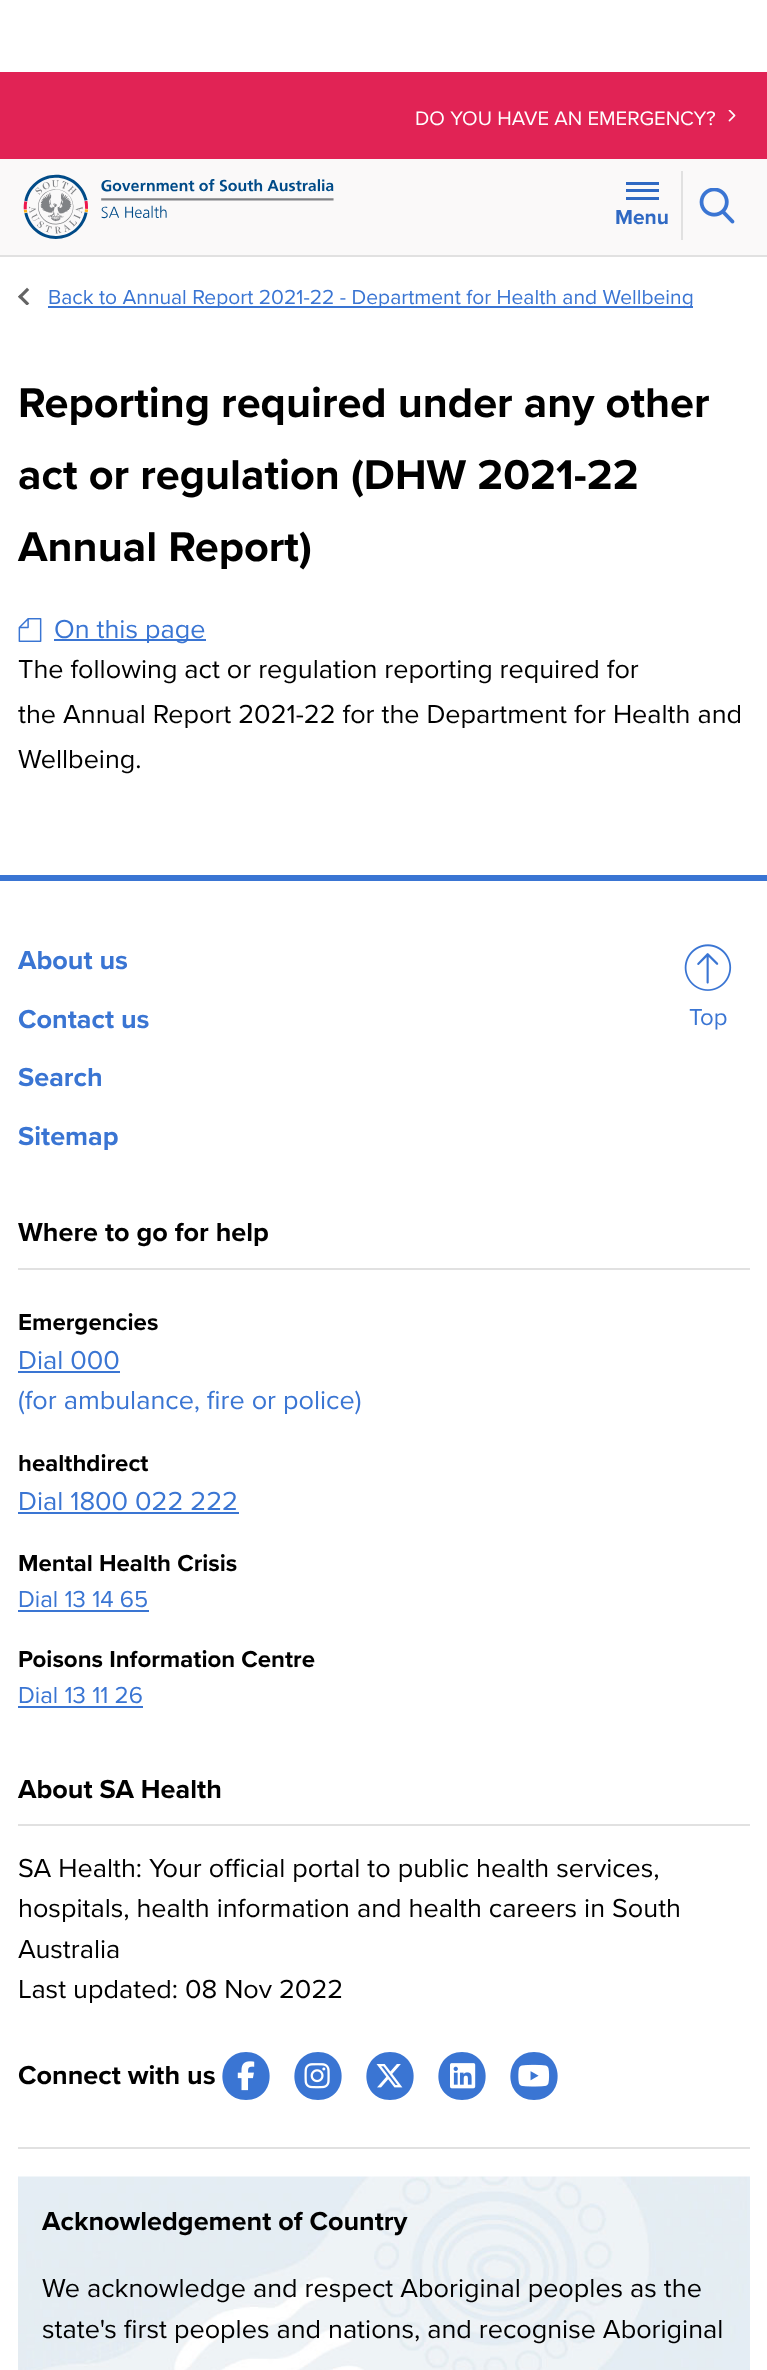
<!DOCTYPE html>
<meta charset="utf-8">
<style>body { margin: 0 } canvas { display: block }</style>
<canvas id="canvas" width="767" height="2370"></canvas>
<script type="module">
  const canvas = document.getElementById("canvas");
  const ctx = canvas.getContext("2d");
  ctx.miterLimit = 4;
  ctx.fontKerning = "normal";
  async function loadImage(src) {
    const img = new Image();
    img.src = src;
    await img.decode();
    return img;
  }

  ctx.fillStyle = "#ffffff";
  ctx.fillRect(0, 0, 767, 2370);
  ctx.fillStyle = "#e12355";
  ctx.fillRect(0, 72, 767, 87);
  ctx.font = "20.4px Proxima Nova";
  ctx.fillStyle = "#ffffff";
  ctx.fillText("DO YOU HAVE AN EMERGENCY?", 415, 125);
  ctx.drawImage(await loadImage("img1.png"), 728, 110, 8, 12);
  ctx.fillStyle = "#faf9f9";
  ctx.fillRect(0, 159, 767, 96);
  ctx.fillStyle = "#e1e1e1";
  ctx.fillRect(0, 255, 767, 2);
  ctx.drawImage(await loadImage("img2.png"), 23, 174, 311, 65);
  ctx.fillStyle = "#2f69c3";
  ctx.fillRect(626, 182, 33, 3);
  ctx.fillRect(626, 189, 33, 3);
  ctx.fillRect(626, 197, 33, 3);
  ctx.font = "bold 21px Proxima Nova";
  ctx.fillText("Menu", 615, 224);
  ctx.drawImage(await loadImage("img3.png"), 699, 188, 36, 36);
  ctx.fillStyle = "#e1e1e1";
  ctx.fillRect(681, 171, 2, 69);
  ctx.drawImage(await loadImage("img4.png"), 18, 287, 12, 18);
  ctx.fillStyle = "#3a75d3";
  ctx.fillRect(48, 306, 645, 2);
  ctx.font = "21px Proxima Nova";
  ctx.fillText("Back to Annual Report 2021-22 - Department for Health and Wellbeing", 48, 304);
  ctx.font = "bold 43.25px Proxima Nova";
  ctx.fillStyle = "#000000";
  ctx.fillText("Reporting required under any other", 18, 417);
  ctx.fillText("act or regulation (DHW 2021-22", 18, 489);
  ctx.fillText("Annual Report)", 18, 561);
  ctx.drawImage(await loadImage("img5.png"), 18, 618, 24, 24);
  ctx.fillStyle = "#3a75d3";
  ctx.fillRect(54, 639, 152, 2);
  ctx.font = "27px Proxima Nova";
  ctx.fillText("On this page", 54, 638);
  ctx.fillStyle = "#000000";
  ctx.fillText("The following act or regulation reporting required for", 18, 678);
  ctx.fillText("the Annual Report 2021-22 for the Department for Health and", 18, 723);
  ctx.fillText("Wellbeing.", 18, 768);
  ctx.fillStyle = "#3a75d3";
  ctx.fillRect(0, 875, 767, 6);
  ctx.font = "bold 27px Proxima Nova";
  ctx.fillText("About us", 18, 969);
  ctx.fillText("Contact us", 18, 1028);
  ctx.fillText("Search", 18, 1086);
  ctx.fillText("Sitemap", 18, 1145);
  ctx.drawImage(await loadImage("img6.png"), 684, 944, 48, 47);
  ctx.font = "24px Proxima Nova";
  ctx.fillText("Top", 689, 1025);
  ctx.fillStyle = "#e1e1e1";
  ctx.fillRect(18, 1268, 732, 2);
  ctx.font = "bold 27px Proxima Nova";
  ctx.fillStyle = "#000000";
  ctx.fillText("Where to go for help", 18, 1241);
  ctx.font = "bold 24px Proxima Nova";
  ctx.fillText("Emergencies", 18, 1330);
  ctx.font = "27px Proxima Nova";
  ctx.fillStyle = "#3a75d3";
  ctx.fillText("Dial 000", 18, 1369);
  ctx.fillRect(18, 1371, 102, 2);
  ctx.fillText("(for ambulance, fire or police)", 18, 1409);
  ctx.font = "bold 24px Proxima Nova";
  ctx.fillStyle = "#000000";
  ctx.fillText("healthdirect", 18, 1471);
  ctx.font = "27px Proxima Nova";
  ctx.fillStyle = "#3a75d3";
  ctx.fillText("Dial 1800 022 222", 18, 1510);
  ctx.fillRect(18, 1512, 221, 2);
  ctx.font = "bold 24px Proxima Nova";
  ctx.fillStyle = "#000000";
  ctx.fillText("Mental Health Crisis", 18, 1571);
  ctx.font = "24px Proxima Nova";
  ctx.fillStyle = "#3a75d3";
  ctx.fillText("Dial 13 14 65", 18, 1607);
  ctx.fillRect(18, 1610, 131, 2);
  ctx.font = "bold 24px Proxima Nova";
  ctx.fillStyle = "#000000";
  ctx.fillText("Poisons Information Centre", 18, 1667);
  ctx.font = "24px Proxima Nova";
  ctx.fillStyle = "#3a75d3";
  ctx.fillText("Dial 13 11 26", 18, 1703);
  ctx.fillRect(18, 1706, 125, 2);
  ctx.fillStyle = "#e1e1e1";
  ctx.fillRect(18, 1824, 732, 2);
  ctx.font = "bold 27px Proxima Nova";
  ctx.fillStyle = "#000000";
  ctx.fillText("About SA Health", 18, 1798);
  ctx.font = "27px Proxima Nova";
  ctx.fillText("SA Health: Your official portal to public health services,", 18, 1877);
  ctx.fillText("hospitals, health information and health careers in South", 18, 1917);
  ctx.fillText("Australia", 18, 1958);
  ctx.fillText("Last updated: 08 Nov 2022", 18, 1998);
  ctx.font = "bold 27px Proxima Nova";
  ctx.fillText("Connect with us", 18, 2084);
  ctx.fillStyle = "#3a75d3";
  ctx.beginPath();
  ctx.moveTo(246, 2100);
  ctx.bezierCurveTo(278, 2100, 277, 2052, 246, 2052);
  ctx.bezierCurveTo(215, 2052, 214, 2100, 246, 2100);
  ctx.closePath();
  ctx.fill();
  ctx.drawImage(await loadImage("img7.png"), 237, 2061, 18, 30);
  ctx.beginPath();
  ctx.moveTo(318, 2100);
  ctx.bezierCurveTo(350, 2100, 349, 2052, 318, 2052);
  ctx.bezierCurveTo(287, 2052, 286, 2100, 318, 2100);
  ctx.closePath();
  ctx.fill();
  ctx.drawImage(await loadImage("img8.png"), 304, 2063, 26, 26);
  ctx.beginPath();
  ctx.moveTo(390, 2100);
  ctx.bezierCurveTo(422, 2100, 421, 2052, 390, 2052);
  ctx.bezierCurveTo(359, 2052, 358, 2100, 390, 2100);
  ctx.closePath();
  ctx.fill();
  ctx.drawImage(await loadImage("img9.png"), 376, 2064, 27, 24);
  ctx.beginPath();
  ctx.moveTo(462, 2100);
  ctx.bezierCurveTo(494, 2100, 493, 2052, 462, 2052);
  ctx.bezierCurveTo(431, 2052, 430, 2100, 462, 2100);
  ctx.closePath();
  ctx.fill();
  ctx.drawImage(await loadImage("img10.png"), 450, 2063, 26, 26);
  ctx.beginPath();
  ctx.moveTo(534, 2100);
  ctx.bezierCurveTo(566, 2100, 565, 2052, 534, 2052);
  ctx.bezierCurveTo(503, 2052, 502, 2100, 534, 2100);
  ctx.closePath();
  ctx.fill();
  ctx.drawImage(await loadImage("img11.png"), 518, 2064, 32, 23);
  ctx.fillStyle = "#e1e1e1";
  ctx.fillRect(18, 2147, 732, 2);
  ctx.drawImage(await loadImage("img12.png"), 18, 2176, 732, 194);
  ctx.fillStyle = "#000000";
  ctx.fillText("Acknowledgement of Country", 42, 2230);
  ctx.font = "27px Proxima Nova";
  ctx.fillText("We acknowledge and respect Aboriginal peoples as the", 42, 2297);
  ctx.fillText("state's first peoples and nations, and recognise Aboriginal", 42, 2338);
</script>
